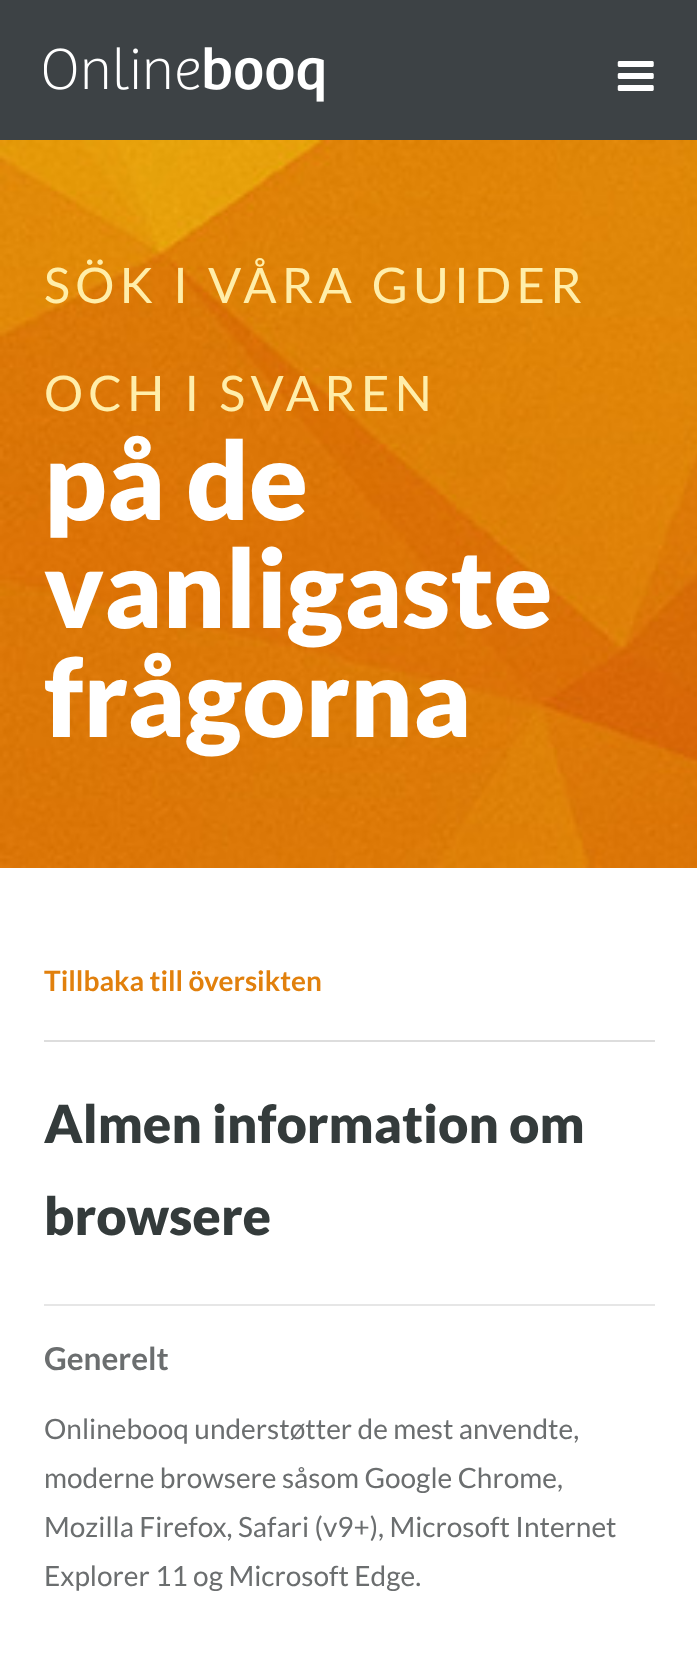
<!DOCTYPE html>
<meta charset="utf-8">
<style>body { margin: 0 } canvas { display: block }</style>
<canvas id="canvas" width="697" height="1657"></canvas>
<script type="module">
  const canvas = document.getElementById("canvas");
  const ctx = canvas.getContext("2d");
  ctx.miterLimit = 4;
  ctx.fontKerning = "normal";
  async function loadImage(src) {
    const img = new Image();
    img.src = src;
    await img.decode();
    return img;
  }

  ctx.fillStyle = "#ffffff";
  ctx.fillRect(0, 0, 697, 1657);
  ctx.fillStyle = "#3d4245";
  ctx.fillRect(0, 0, 697, 140);
  ctx.drawImage(await loadImage("img1.png"), 44, 47, 280, 55);
  ctx.drawImage(await loadImage("img2.png"), 617, 61, 37, 30);
  ctx.drawImage(await loadImage("img3.png"), 0, 140, 697, 728);
  ctx.letterSpacing = "5.25px";
  ctx.font = "49px Lato";
  ctx.fillStyle = "#ffeeaa";
  ctx.fillText("SÖK I VÅRA GUIDER", 44, 303);
  ctx.fillText("OCH I SVAREN", 44, 411);
  ctx.letterSpacing = "0px";
  ctx.font = "900 108.5px Lato";
  ctx.fillStyle = "#ffffff";
  ctx.fillText("på de", 44, 520);
  ctx.fillText("vanligaste", 44, 628);
  ctx.fillText("frågorna", 44, 737);
  ctx.fillStyle = "#dddddd";
  ctx.fillRect(44, 1040, 611, 2);
  ctx.font = "bold 28px Lato";
  ctx.fillStyle = "#e1800d";
  ctx.fillText("Tillbaka till översikten", 44, 991);
  ctx.font = "900 52.5px Lato";
  ctx.fillStyle = "#343b3b";
  ctx.fillText("Almen information om", 44, 1143);
  ctx.fillText("browsere", 44, 1235);
  ctx.fillStyle = "#e6e6e6";
  ctx.fillRect(44, 1304, 611, 2);
  ctx.font = "bold 31.5px Lato";
  ctx.fillStyle = "#6b6e6f";
  ctx.fillText("Generelt", 44, 1370);
  ctx.font = "28px Lato";
  ctx.fillText("Onlinebooq understøtter de mest anvendte,", 44, 1439);
  ctx.fillText("moderne browsere såsom Google Chrome,", 44, 1488);
  ctx.fillText("Mozilla Firefox, Safari (v9+), Microsoft Internet", 44, 1537);
  ctx.fillText("Explorer 11 og Microsoft Edge.", 44, 1586);
</script>
